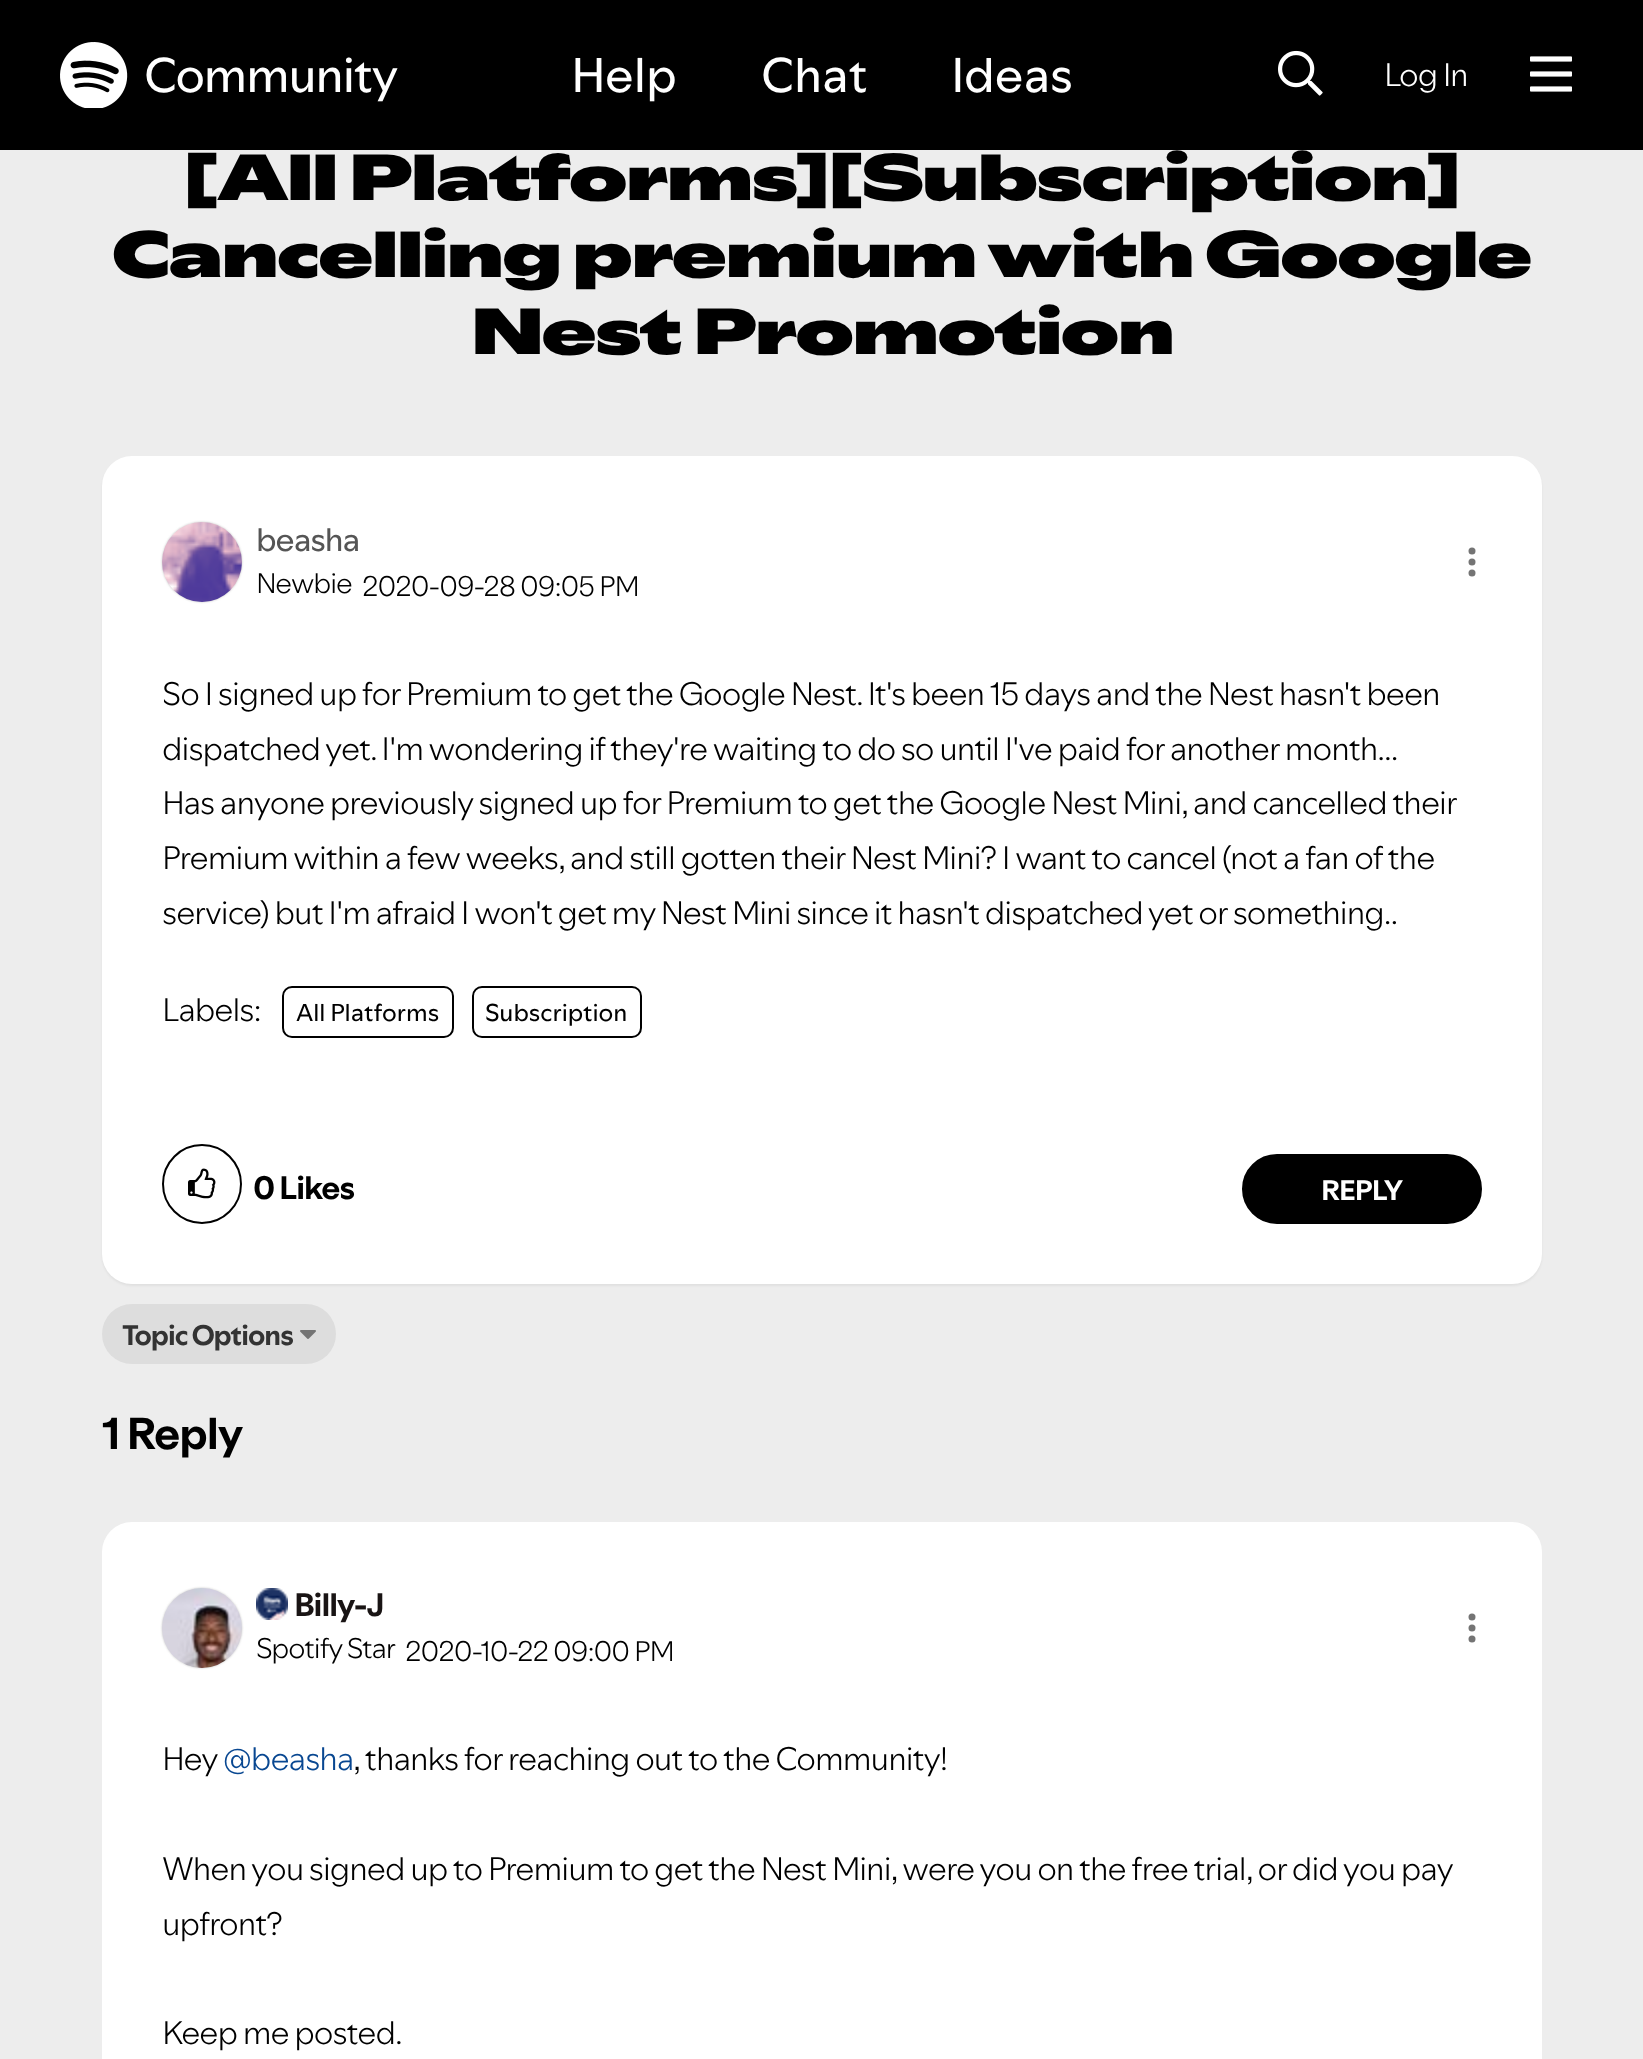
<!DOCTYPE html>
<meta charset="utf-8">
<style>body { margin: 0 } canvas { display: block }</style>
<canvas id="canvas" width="1643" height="2059"></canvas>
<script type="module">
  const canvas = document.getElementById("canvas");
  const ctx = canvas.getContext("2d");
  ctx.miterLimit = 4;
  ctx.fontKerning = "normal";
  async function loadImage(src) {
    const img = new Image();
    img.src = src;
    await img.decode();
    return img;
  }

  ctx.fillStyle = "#ededed";
  ctx.fillRect(0, 0, 1643, 2059);
  ctx.fillStyle = "#000000";
  ctx.fillRect(0, 0, 1643, 150);
  ctx.drawImage(await loadImage("img1.png"), 60, 42, 68, 66);
  ctx.letterSpacing = "-1px";
  ctx.font = "48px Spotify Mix";
  ctx.fillStyle = "#ffffff";
  ctx.fillText("Community", 144, 92);
  ctx.letterSpacing = "0px";
  ctx.fillText("Help", 571, 92);
  ctx.fillText("Chat", 761, 92);
  ctx.fillText("Ideas", 951, 92);
  ctx.drawImage(await loadImage("img2.png"), 1278, 50, 45, 46);
  ctx.letterSpacing = "-1px";
  ctx.font = "300 32px Spotify Mix";
  ctx.fillText("Log In", 1384, 86);
  ctx.drawImage(await loadImage("img3.png"), 1530, 56, 42, 36);
  ctx.font = "900 64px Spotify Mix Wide";
  ctx.fillStyle = "#000000";
  ctx.fillText("[All Platforms][Subscription]", 184, 200);
  ctx.fillText("Cancelling premium with Google", 112, 277);
  ctx.fillText("Nest Promotion", 471, 354);
  ctx.fillStyle = "rgba(0, 0, 0, 0.05)";
  ctx.filter = "blur(1px)";
  ctx.beginPath();
  ctx.roundRect(102, 458, 1440, 828, 30);
  ctx.fill();
  ctx.filter = "none";
  ctx.fillStyle = "#ffffff";
  ctx.beginPath();
  ctx.roundRect(102, 456, 1440, 828, 30);
  ctx.fill();
  ctx.fillStyle = "#c4c4c4";
  ctx.filter = "blur(1px)";
  ctx.beginPath();
  ctx.roundRect(162, 522, 80, 80, 40);
  ctx.fill();
  ctx.filter = "none";
  ctx.drawImage(await loadImage("img4.png"), 162, 522, 80, 80);
  ctx.font = "32px Spotify Mix";
  ctx.fillStyle = "#555555";
  ctx.fillText("beasha", 256, 551);
  ctx.font = "300 28px Spotify Mix";
  ctx.fillStyle = "#000000";
  ctx.fillText("Newbie", 256, 593);
  ctx.fillText("2020-09-28", 362, 596);
  ctx.fillText("09:05 PM", 520, 596);
  ctx.fillStyle = "#747474";
  ctx.beginPath();
  ctx.arc(1472, 551, 3.5, 0, Math.PI * 2);
  ctx.fill();
  ctx.beginPath();
  ctx.arc(1472, 562, 3.5, 0, Math.PI * 2);
  ctx.fill();
  ctx.beginPath();
  ctx.arc(1472, 573, 3.5, 0, Math.PI * 2);
  ctx.fill();
  ctx.font = "300 32px Spotify Mix";
  ctx.fillStyle = "#000000";
  ctx.fillText("So I signed up for Premium to get the Google Nest. It's been 15 days and the Nest hasn't been", 162, 705);
  ctx.fillText("dispatched yet. I'm wondering if they're waiting to do so until I've paid for another month...", 162, 760);
  ctx.fillText("Has anyone previously signed up for Premium to get the Google Nest Mini, and cancelled their", 162, 814);
  ctx.fillText("Premium within a few weeks, and still gotten their Nest Mini? I want to cancel (not a fan of the", 162, 869);
  ctx.fillText("service) but I'm afraid I won't get my Nest Mini since it hasn't dispatched yet or something..", 162, 924);
  ctx.fillText("Labels:", 162, 1021);
  ctx.beginPath();
  ctx.roundRect(283, 987, 170, 50, 9);
  ctx.strokeStyle = "#000000";
  ctx.lineWidth = 2;
  ctx.stroke();
  ctx.letterSpacing = "0px";
  ctx.font = "24px Spotify Mix";
  ctx.fillText("All Platforms", 296, 1021);
  ctx.beginPath();
  ctx.roundRect(473, 987, 168, 50, 9);
  ctx.stroke();
  ctx.fillText("Subscription", 485, 1021);
  ctx.beginPath();
  ctx.arc(202, 1184, 39, 0, Math.PI * 2);
  ctx.stroke();
  ctx.drawImage(await loadImage("img5.png"), 188, 1168, 28, 31);
  ctx.letterSpacing = "-1px";
  ctx.font = "bold 32px Spotify Mix";
  ctx.fillText("0 Likes", 253, 1199);
  ctx.beginPath();
  ctx.roundRect(1243, 1155, 238, 68, 34);
  ctx.fill();
  ctx.stroke();
  ctx.font = "bold 28px Spotify Mix";
  ctx.fillStyle = "#ffffff";
  ctx.fillText("REPLY", 1321, 1200);
  ctx.fillStyle = "#dddddd";
  ctx.beginPath();
  ctx.roundRect(102, 1304, 234, 60, 30);
  ctx.fill();
  ctx.fillStyle = "#333333";
  ctx.fillText("Topic Options", 122, 1345);
  ctx.drawImage(await loadImage("img6.png"), 300, 1330, 16, 9);
  ctx.font = "bold 44px Spotify Mix";
  ctx.fillStyle = "#000000";
  ctx.fillText("1 Reply", 102, 1449);
  ctx.fillStyle = "#ffffff";
  ctx.beginPath();
  ctx.roundRect(102, 1522, 1440, 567, 30);
  ctx.fill();
  ctx.fillStyle = "#c4c4c4";
  ctx.filter = "blur(1px)";
  ctx.beginPath();
  ctx.roundRect(162, 1588, 80, 80, 40);
  ctx.fill();
  ctx.filter = "none";
  ctx.drawImage(await loadImage("img7.png"), 162, 1588, 80, 80);
  ctx.drawImage(await loadImage("img8.png"), 256, 1588, 32, 32);
  ctx.font = "bold 32px Spotify Mix";
  ctx.fillStyle = "#191414";
  ctx.fillText("Billy-J", 294, 1616);
  ctx.font = "300 28px Spotify Mix";
  ctx.fillStyle = "#000000";
  ctx.fillText("Spotify Star", 256, 1658);
  ctx.fillText("2020-10-22", 405, 1661);
  ctx.fillText("09:00 PM", 553, 1661);
  ctx.fillStyle = "#747474";
  ctx.beginPath();
  ctx.arc(1472, 1617, 3.5, 0, Math.PI * 2);
  ctx.fill();
  ctx.beginPath();
  ctx.arc(1472, 1628, 3.5, 0, Math.PI * 2);
  ctx.fill();
  ctx.beginPath();
  ctx.arc(1472, 1639, 3.5, 0, Math.PI * 2);
  ctx.fill();
  ctx.font = "300 32px Spotify Mix";
  ctx.fillStyle = "#000000";
  ctx.fillText("Hey", 162, 1770);
  ctx.fillStyle = "#084791";
  ctx.fillText("@beasha", 223, 1770);
  ctx.fillStyle = "#000000";
  ctx.fillText(", thanks for reaching out to the Community!", 353, 1770);
  ctx.fillText("When you signed up to Premium to get the Nest Mini, were you on the free trial, or did you pay", 162, 1880);
  ctx.fillText("upfront?", 162, 1935);
  ctx.fillText("Keep me posted.", 162, 2044);
</script>
